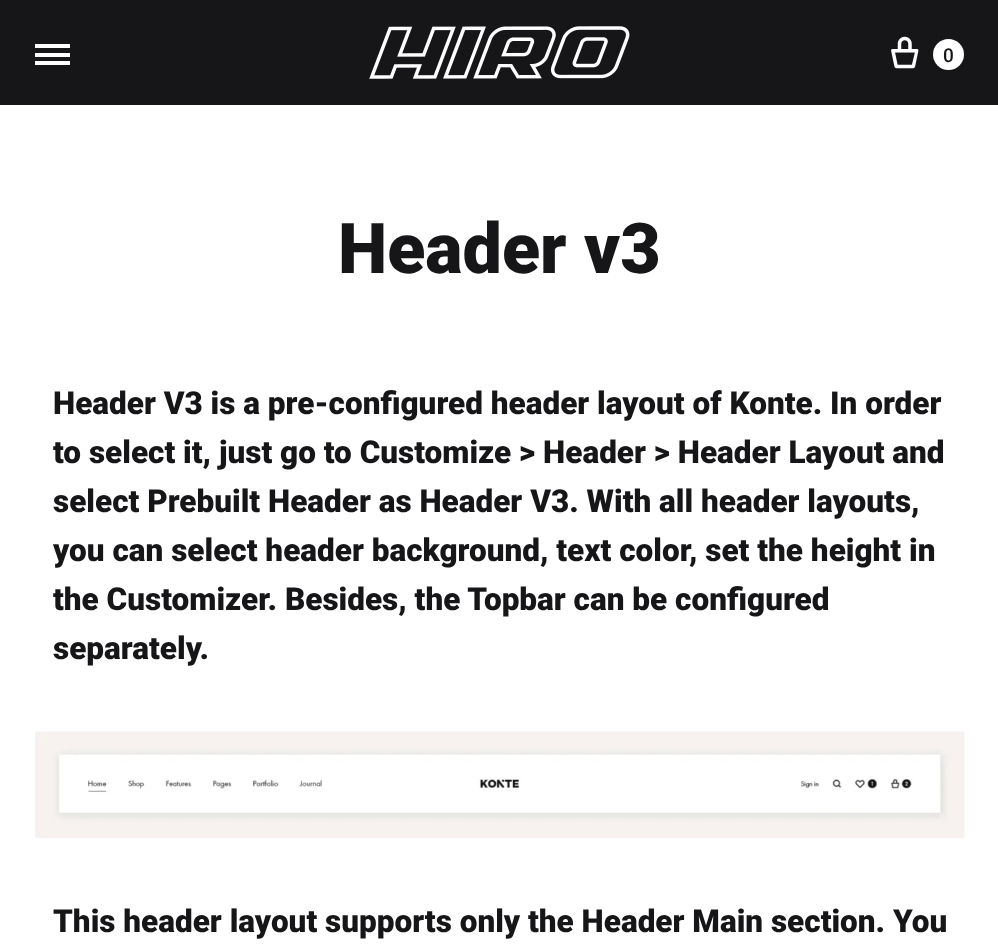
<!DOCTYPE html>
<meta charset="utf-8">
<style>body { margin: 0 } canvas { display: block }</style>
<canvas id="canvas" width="998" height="948"></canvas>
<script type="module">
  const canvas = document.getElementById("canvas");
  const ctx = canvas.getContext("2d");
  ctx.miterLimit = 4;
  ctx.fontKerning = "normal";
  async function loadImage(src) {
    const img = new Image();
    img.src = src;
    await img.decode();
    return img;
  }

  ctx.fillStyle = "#ffffff";
  ctx.fillRect(0, 0, 998, 948);
  ctx.fillStyle = "#161619";
  ctx.fillRect(0, 0, 998, 105);
  ctx.fillStyle = "#ffffff";
  ctx.fillRect(35, 53, 35, 4);
  ctx.fillRect(35, 44, 35, 4);
  ctx.fillRect(35, 61, 35, 4);
  ctx.drawImage(await loadImage("img1.png"), 369, 26, 261, 53);
  ctx.drawImage(await loadImage("img2.png"), 891, 36, 28, 33);
  ctx.beginPath();
  ctx.arc(948.5, 54.5, 15.5, 0, Math.PI * 2);
  ctx.fill();
  ctx.font = "500 19px Roboto";
  ctx.fillStyle = "#161619";
  ctx.fillText("0", 943, 62);
  ctx.font = "900 70px Roboto";
  ctx.fillText("Header v3", 338, 273);
  ctx.font = "900 31.5px Roboto";
  ctx.fillText("Header V3 is a pre-configured header layout of Konte. In order", 53, 414);
  ctx.fillText("to select it, just go to Customize > Header > Header Layout and", 53, 463);
  ctx.fillText("select Prebuilt Header as Header V3. With all header layouts,", 53, 512);
  ctx.fillText("you can select header background, text color, set the height in", 53, 561);
  ctx.fillText("the Customizer. Besides, the Topbar can be configured", 53, 610);
  ctx.fillText("separately.", 53, 659);
  ctx.drawImage(await loadImage("img3.png"), 35, 731, 930, 107);
  ctx.fillText("This header layout supports only the Header Main section. You", 53, 932);
</script>
